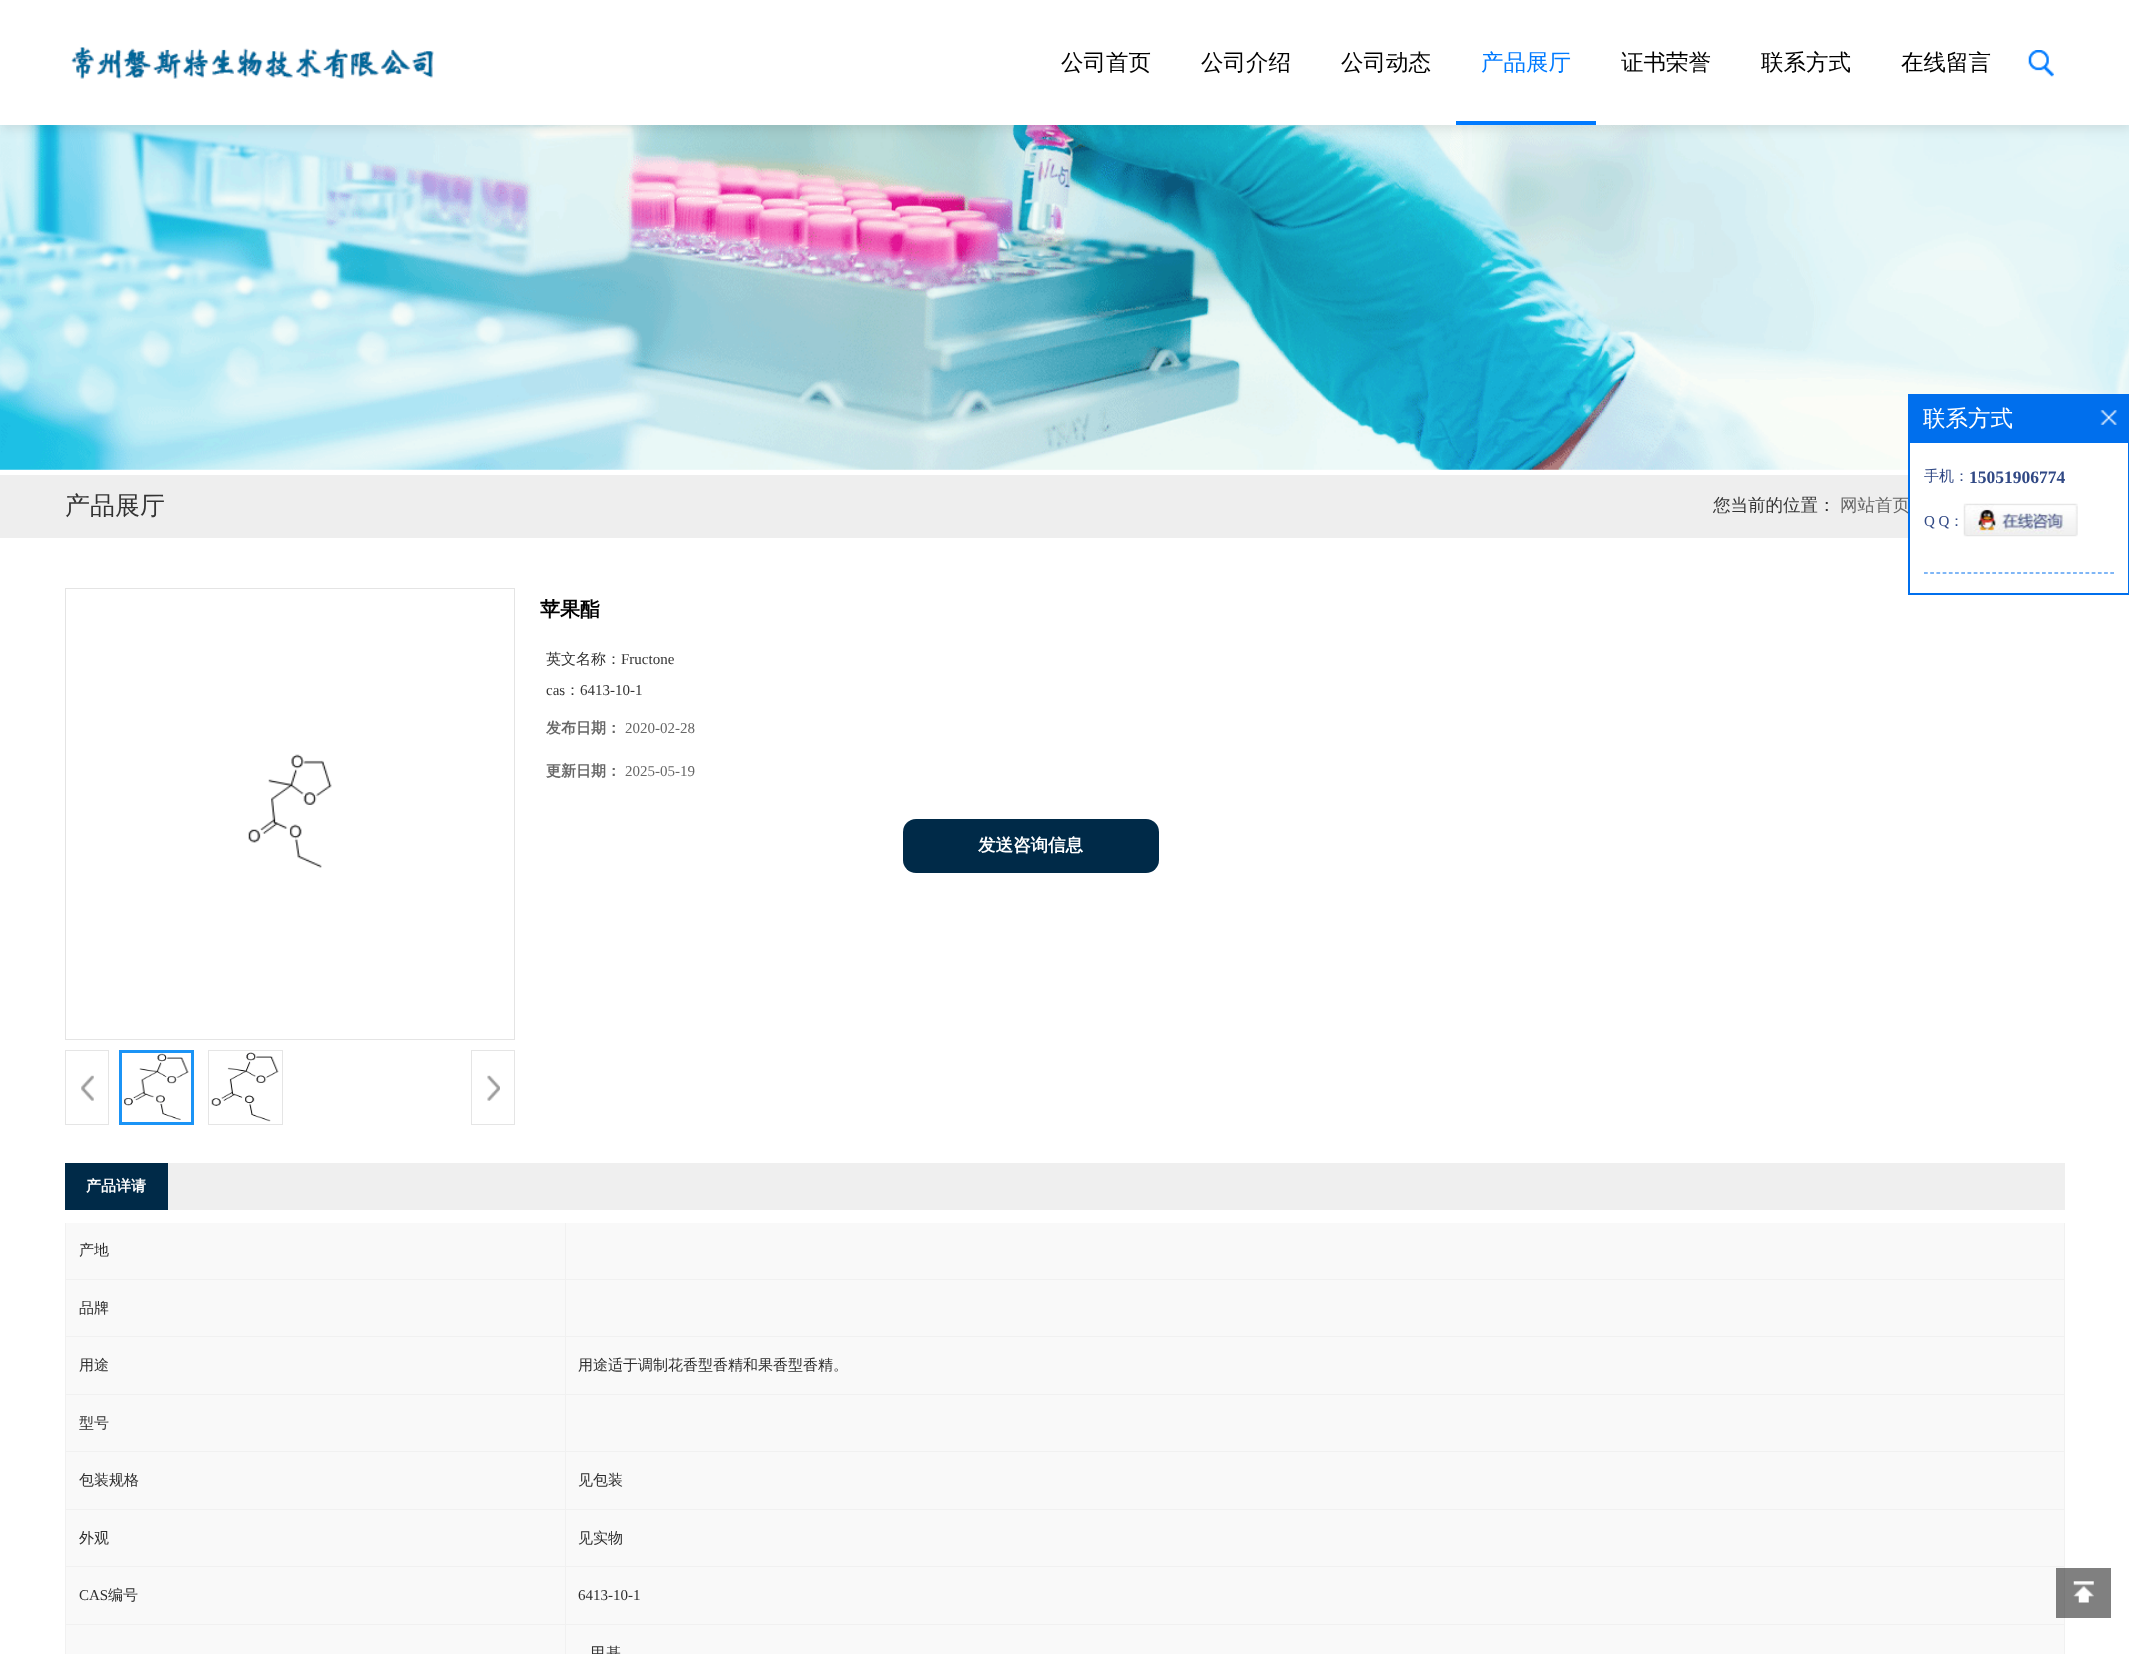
<!DOCTYPE html>
<meta charset="utf-8">
<style>body { margin: 0 } canvas { display: block }</style>
<canvas id="canvas" width="2129" height="1654"></canvas>
<script type="module">
  const canvas = document.getElementById("canvas");
  const ctx = canvas.getContext("2d");
  ctx.miterLimit = 4;
  ctx.fontKerning = "normal";
  async function loadImage(src) {
    const img = new Image();
    img.src = src;
    await img.decode();
    return img;
  }

  ctx.fillStyle = "#ffffff";
  ctx.fillRect(0, 0, 2129, 1654);
  ctx.fillStyle = "#808080";
  ctx.fillRect(2065, 1568, 46, 50);
  ctx.drawImage(await loadImage("img3.png"), 0, 125, 2129, 345);
  ctx.fillStyle = "rgba(0, 0, 0, 0.1)";
  ctx.filter = "blur(6px)";
  ctx.beginPath();
  ctx.rect(1, 3, 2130, 125);
  ctx.fill();
  ctx.filter = "none";
  ctx.fillStyle = "#ffffff";
  ctx.fillRect(0, 0, 2129, 125);
  ctx.drawImage(await loadImage("img1.png"), 71, 47, 363, 32);
  ctx.font = "500 22.5px WenQuanYi Zen Hei";
  ctx.fillStyle = "#000000";
  ctx.fillText("公司首页", 1061, 70);
  ctx.fillText("公司介绍", 1201, 70);
  ctx.fillText("公司动态", 1341, 70);
  ctx.fillStyle = "#007aff";
  ctx.fillText("产品展厅", 1481, 70);
  ctx.fillRect(1456, 121, 140, 4);
  ctx.fillStyle = "#000000";
  ctx.fillText("证书荣誉", 1621, 70);
  ctx.fillText("联系方式", 1761, 70);
  ctx.fillText("在线留言", 1901, 70);
  ctx.drawImage(await loadImage("img2.png"), 2028, 50, 26, 27);
  ctx.fillStyle = "#eeeeee";
  ctx.fillRect(0, 475, 1908, 63);
  ctx.font = "500 25px WenQuanYi Zen Hei";
  ctx.fillStyle = "#333333";
  ctx.fillText("产品展厅", 65, 514);
  ctx.font = "500 17.5px WenQuanYi Zen Hei";
  ctx.fillText("您当前的位置：", 1713, 511);
  ctx.fillStyle = "#666666";
  ctx.fillText("网站首页", 1840, 511);
  ctx.fillStyle = "#006fed";
  ctx.fillRect(1908, 394, 221, 201);
  ctx.font = "500 22.5px WenQuanYi Zen Hei";
  ctx.fillStyle = "#ffffff";
  ctx.fillText("联系方式", 1923, 426);
  ctx.drawImage(await loadImage("img4.png"), 2100, 410, 17, 15);
  ctx.fillRect(1910, 443, 218, 150);
  ctx.beginPath();
  ctx.moveTo(1924, 573);
  ctx.lineTo(2114, 573);
  ctx.strokeStyle = "#006fed";
  ctx.lineWidth = 1.2;
  ctx.setLineDash([3.75, 2.46]);
  ctx.stroke();
  ctx.font = "500 15px WenQuanYi Zen Hei";
  ctx.fillStyle = "#314985";
  ctx.fillText("手机：", 1924, 481);
  ctx.font = "bold 17.5px Liberation Serif";
  ctx.fillText("15051906774", 1969, 483);
  ctx.font = "15px Liberation Serif";
  ctx.fillText("Q Q", 1924, 526);
  ctx.font = "500 15px WenQuanYi Zen Hei";
  ctx.fillText("：", 1949, 526);
  ctx.drawImage(await loadImage("img5.png"), 1963, 503, 115, 34);
  ctx.strokeStyle = "#e4e4e4";
  ctx.lineWidth = 1;
  ctx.setLineDash([]);
  ctx.strokeRect(65.5, 588.5, 449, 451);
  ctx.drawImage(await loadImage("img6.png"), 248, 754, 84, 114);
  ctx.drawImage(await loadImage("img7.png"), 81, 1075, 13, 26);
  ctx.strokeStyle = "#e5e5e5";
  ctx.strokeRect(65.5, 1050.5, 43, 74);
  ctx.strokeStyle = "#1b94f6";
  ctx.lineWidth = 3;
  ctx.strokeRect(120.5, 1051.5, 72, 72);
  ctx.drawImage(await loadImage("img8.png"), 124, 1053, 65, 67);
  ctx.strokeStyle = "#e5e5e5";
  ctx.lineWidth = 1;
  ctx.strokeRect(208.5, 1050.5, 74, 74);
  ctx.drawImage(await loadImage("img9.png"), 211, 1052, 68, 70);
  ctx.drawImage(await loadImage("img10.png"), 487, 1075, 13, 26);
  ctx.strokeRect(471.5, 1050.5, 43, 74);
  ctx.font = "bold 20px WenQuanYi Zen Hei";
  ctx.fillStyle = "#000000";
  ctx.fillText("苹果酯", 540, 616);
  ctx.font = "500 15px WenQuanYi Zen Hei";
  ctx.fillStyle = "#333333";
  ctx.fillText("英文名称：", 546, 664);
  ctx.font = "15px Liberation Serif";
  ctx.fillText("Fructone", 621, 664);
  ctx.fillText("cas", 546, 695);
  ctx.font = "500 15px WenQuanYi Zen Hei";
  ctx.fillText("：", 565, 695);
  ctx.font = "15px Liberation Serif";
  ctx.fillText("6413-10-1", 580, 695);
  ctx.font = "bold 15px WenQuanYi Zen Hei";
  ctx.fillStyle = "#666666";
  ctx.fillText("发布日期：", 546, 733);
  ctx.font = "15px Liberation Serif";
  ctx.fillText("2020-02-28", 625, 733);
  ctx.font = "bold 15px WenQuanYi Zen Hei";
  ctx.fillText("更新日期：", 546, 776);
  ctx.font = "15px Liberation Serif";
  ctx.fillText("2025-05-19", 625, 776);
  ctx.fillStyle = "#002a48";
  ctx.beginPath();
  ctx.roundRect(903, 819, 256, 54, 13);
  ctx.fill();
  ctx.font = "bold 17.5px WenQuanYi Zen Hei";
  ctx.fillStyle = "#ffffff";
  ctx.fillText("发送咨询信息", 978, 851);
  ctx.fillStyle = "#efefef";
  ctx.fillRect(168, 1163, 1897, 47);
  ctx.fillStyle = "#002a48";
  ctx.fillRect(65, 1163, 103, 47);
  ctx.font = "bold 15px WenQuanYi Zen Hei";
  ctx.fillStyle = "#ffffff";
  ctx.fillText("产品详请", 86, 1191);
  ctx.fillStyle = "#f1f1f1";
  ctx.fillRect(65, 1223, 1, 431);
  ctx.fillStyle = "#f9f9f9";
  ctx.fillRect(66, 1223, 1998, 431);
  ctx.fillStyle = "#7d7d7d";
  ctx.fillRect(2056, 1568, 8, 50);
  ctx.fillStyle = "#f1f1f1";
  ctx.fillRect(565, 1223, 1, 431);
  ctx.fillRect(66, 1279, 500, 1);
  ctx.font = "500 15px WenQuanYi Zen Hei";
  ctx.fillStyle = "#2d2d2d";
  ctx.fillText("产地", 79, 1255);
  ctx.fillStyle = "#f1f1f1";
  ctx.fillRect(2064, 1223, 1, 345);
  ctx.fillRect(566, 1279, 1499, 1);
  ctx.fillRect(66, 1336, 1999, 1);
  ctx.fillStyle = "#2d2d2d";
  ctx.fillText("品牌", 79, 1313);
  ctx.fillStyle = "#f1f1f1";
  ctx.fillRect(66, 1394, 1999, 1);
  ctx.fillStyle = "#2d2d2d";
  ctx.fillText("用途", 79, 1370);
  ctx.fillText("用途适于调制花香型香精和果香型香精。", 578, 1370);
  ctx.fillStyle = "#f1f1f1";
  ctx.fillRect(66, 1451, 1999, 1);
  ctx.fillStyle = "#2d2d2d";
  ctx.fillText("型号", 79, 1428);
  ctx.fillStyle = "#f1f1f1";
  ctx.fillRect(66, 1509, 1999, 1);
  ctx.fillStyle = "#2d2d2d";
  ctx.fillText("包装规格", 79, 1485);
  ctx.fillText("见包装", 578, 1485);
  ctx.fillStyle = "#f1f1f1";
  ctx.fillRect(66, 1566, 1999, 1);
  ctx.fillStyle = "#2d2d2d";
  ctx.fillText("外观", 79, 1543);
  ctx.fillText("见实物", 578, 1543);
  ctx.fillStyle = "#f1f1f1";
  ctx.fillRect(66, 1624, 500, 1);
  ctx.font = "15px Liberation Serif";
  ctx.fillStyle = "#2d2d2d";
  ctx.fillText("CAS", 79, 1600);
  ctx.font = "500 15px WenQuanYi Zen Hei";
  ctx.fillText("编号", 108, 1600);
  ctx.fillStyle = "#f1f1f1";
  ctx.fillRect(2064, 1618, 1, 36);
  ctx.fillStyle = "#797979";
  ctx.fillRect(2064, 1568, 1, 50);
  ctx.fillStyle = "#f1f1f1";
  ctx.fillRect(566, 1624, 1499, 1);
  ctx.font = "15px Liberation Serif";
  ctx.fillStyle = "#2d2d2d";
  ctx.fillText("6413-10-1", 578, 1600);
  ctx.font = "500 15px WenQuanYi Zen Hei";
  ctx.fillText("甲基", 591, 1658);
  ctx.drawImage(await loadImage("img11.png"), 2073, 1581, 21, 22);
</script>
